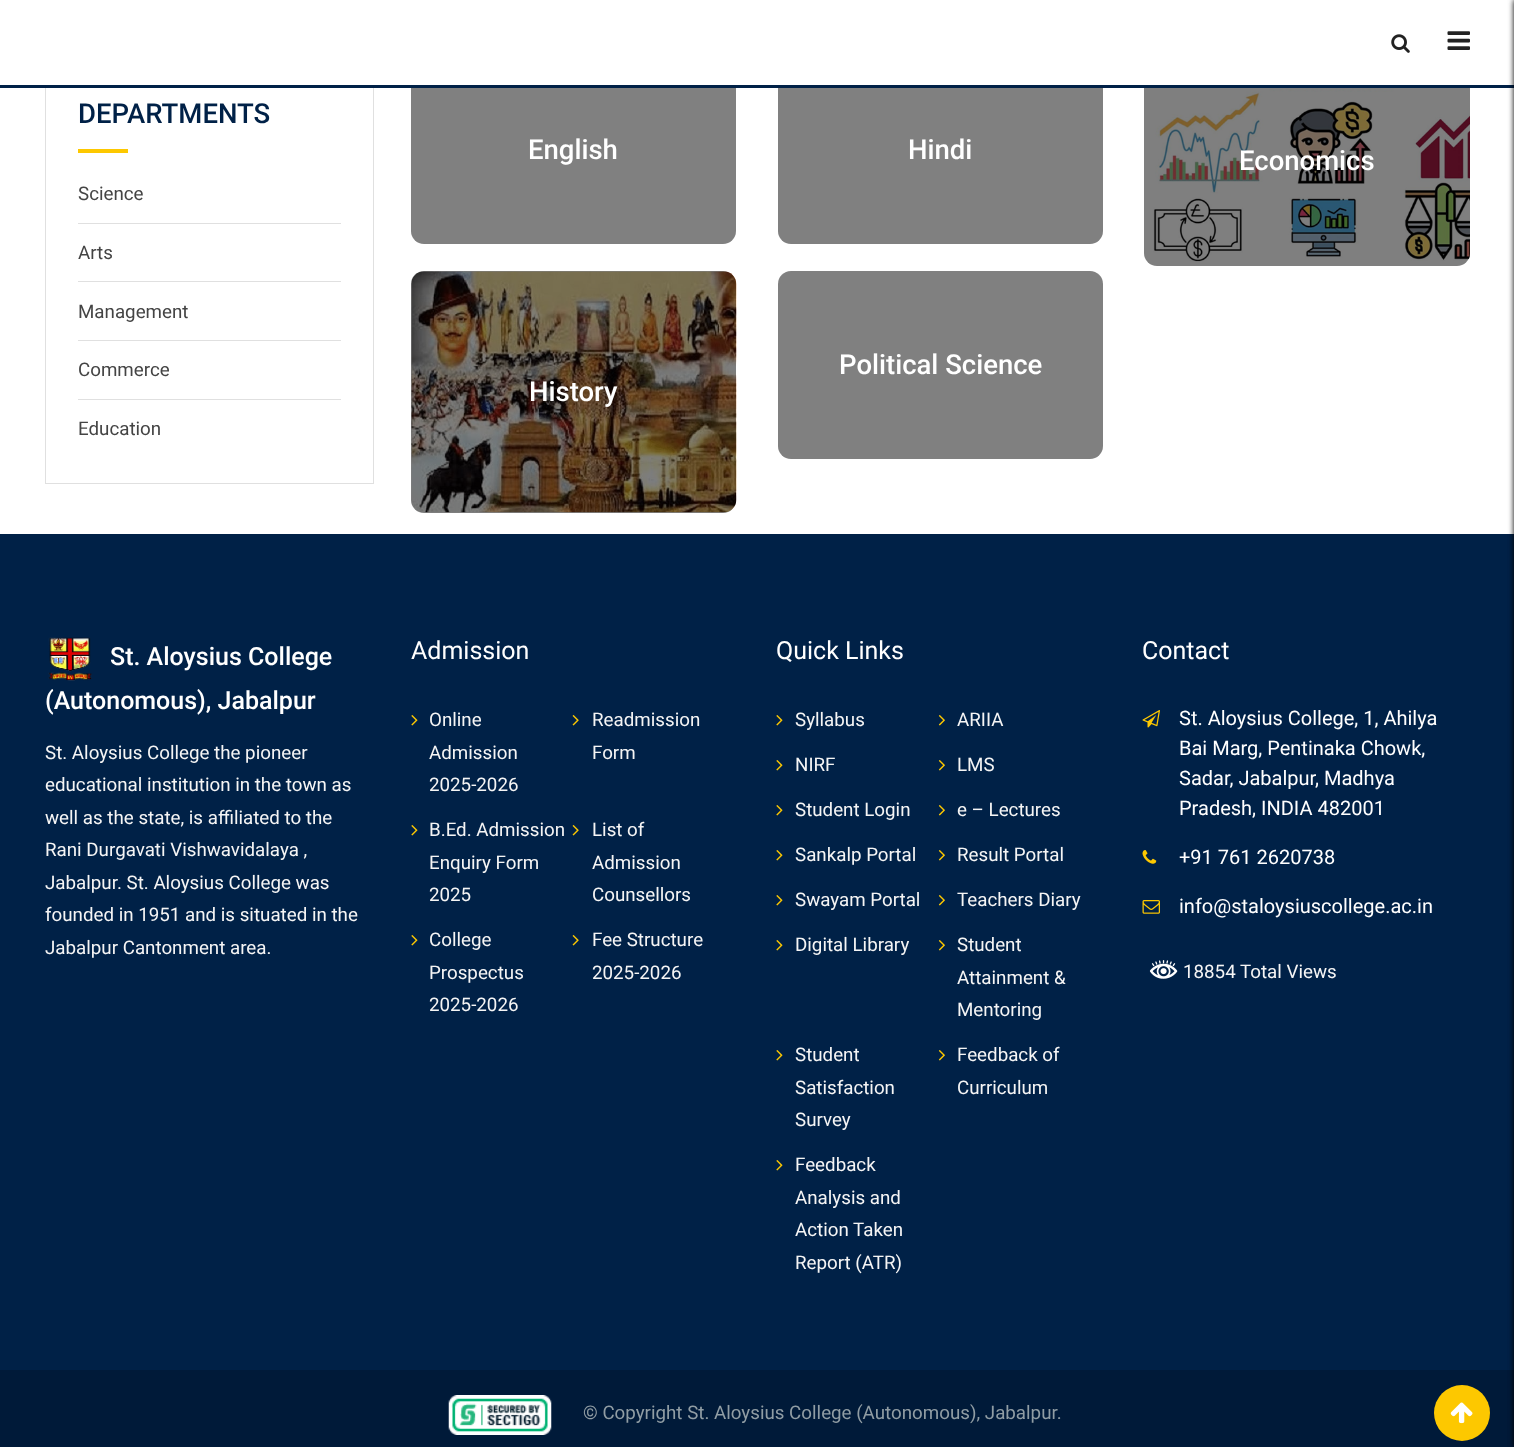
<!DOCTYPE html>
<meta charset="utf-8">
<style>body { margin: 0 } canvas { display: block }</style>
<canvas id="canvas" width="1514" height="1447"></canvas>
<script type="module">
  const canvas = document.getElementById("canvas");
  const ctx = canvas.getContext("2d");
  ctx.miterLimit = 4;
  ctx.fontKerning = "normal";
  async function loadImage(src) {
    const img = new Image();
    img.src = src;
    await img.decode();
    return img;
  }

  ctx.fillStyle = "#ffffff";
  ctx.fillRect(0, 0, 1514, 1447);
  ctx.strokeStyle = "#e0e0e0";
  ctx.strokeRect(45.5, 54.5, 328, 429);
  ctx.fillStyle = "#808080";
  ctx.beginPath();
  ctx.roundRect(411, 56, 325, 188, 13);
  ctx.fill();
  ctx.beginPath();
  ctx.roundRect(778, 56, 325, 188, 13);
  ctx.fill();
  ctx.drawImage(await loadImage("img3.png"), 1153, 88, 317, 174);
  ctx.fillStyle = "rgba(0, 0, 0, 0.5)";
  ctx.beginPath();
  ctx.roundRect(1144, 56, 326, 210, 13);
  ctx.fill();
  ctx.fillStyle = "#ffffff";
  ctx.fillRect(45, 54, 1425, 31);
  ctx.fillStyle = "#002147";
  ctx.fillRect(0, 85, 1514, 3);
  ctx.drawImage(await loadImage("img1.png"), 1391, 34, 19, 19);
  ctx.drawImage(await loadImage("img2.png"), 1447, 31, 23, 19);
  ctx.fillRect(0, 534, 1514, 836);
  ctx.fillStyle = "#001a39";
  ctx.fillRect(0, 1370, 1514, 77);
  ctx.fillStyle = "rgba(0, 0, 0, 0.8)";
  ctx.filter = "blur(3px)";
  ctx.beginPath();
  ctx.rect(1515, 0, 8, 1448);
  ctx.fill();
  ctx.filter = "none";
  ctx.font = "500 27.5px Roboto";
  ctx.fillStyle = "#002147";
  ctx.fillText("DEPARTMENTS", 78, 123);
  ctx.fillStyle = "#fdc800";
  ctx.fillRect(78, 149, 50, 4);
  ctx.fillStyle = "#e0e0e0";
  ctx.fillRect(78, 223, 263, 1);
  ctx.font = "18.75px Roboto";
  ctx.fillStyle = "#444444";
  ctx.fillText("Science", 78, 200);
  ctx.fillStyle = "#e0e0e0";
  ctx.fillRect(78, 281, 263, 1);
  ctx.fillStyle = "#444444";
  ctx.fillText("Arts", 78, 259);
  ctx.fillStyle = "#e0e0e0";
  ctx.fillRect(78, 340, 263, 1);
  ctx.fillStyle = "#444444";
  ctx.fillText("Management", 78, 318);
  ctx.fillStyle = "#e0e0e0";
  ctx.fillRect(78, 399, 263, 1);
  ctx.fillStyle = "#444444";
  ctx.fillText("Commerce", 78, 376);
  ctx.fillText("Education", 78, 435);
  ctx.font = "500 27.5px Roboto";
  ctx.fillStyle = "#ffffff";
  ctx.fillText("English", 528, 159);
  ctx.fillText("Hindi", 908, 159);
  ctx.fillText("Economics", 1239, 170);
  ctx.fillStyle = "#808080";
  ctx.beginPath();
  ctx.roundRect(778, 271, 325, 188, 13);
  ctx.fill();
  ctx.fillStyle = "#ffffff";
  ctx.fillText("Political Science", 839, 374);
  ctx.drawImage(await loadImage("img4.png"), 411, 271, 326, 242);
  ctx.fillStyle = "rgba(0, 0, 0, 0.5)";
  ctx.beginPath();
  ctx.roundRect(411, 271, 325, 242, 13);
  ctx.fill();
  ctx.fillStyle = "#ffffff";
  ctx.fillText("History", 529, 401);
  ctx.fillStyle = "rgba(0, 0, 0, 0.8)";
  ctx.filter = "blur(3px)";
  ctx.beginPath();
  ctx.rect(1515, 0, 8, 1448);
  ctx.fill();
  ctx.filter = "none";
  ctx.drawImage(await loadImage("img5.png"), 48, 637, 44, 44);
  ctx.font = "500 25px Roboto";
  ctx.fillStyle = "#ffffff";
  ctx.fillText("St. Aloysius College", 110, 665);
  ctx.fillText("(Autonomous), Jabalpur", 45, 709);
  ctx.font = "18.75px Roboto";
  ctx.fillStyle = "#f5f5f5";
  ctx.fillText("St. Aloysius College the pioneer", 45, 759);
  ctx.fillText("educational institution in the town as", 45, 791);
  ctx.fillText("well as the state, is affiliated to the", 45, 824);
  ctx.fillText("Rani Durgavati Vishwavidalaya ,", 45, 856);
  ctx.fillText("Jabalpur. St. Aloysius College was", 45, 889);
  ctx.fillText("founded in 1951 and is situated in the", 45, 921);
  ctx.fillText("Jabalpur Cantonment area.", 45, 954);
  ctx.font = "25px Roboto";
  ctx.fillStyle = "#ffffff";
  ctx.fillText("Admission", 411, 659);
  ctx.drawImage(await loadImage("img6.png"), 411, 715, 7, 11);
  ctx.font = "18.75px Roboto";
  ctx.fillStyle = "#f5f5f5";
  ctx.fillText("Online", 429, 726);
  ctx.fillText("Admission", 429, 759);
  ctx.fillText("2025-2026", 429, 791);
  ctx.drawImage(await loadImage("img7.png"), 572, 715, 7, 11);
  ctx.fillText("Readmission", 592, 726);
  ctx.fillText("Form", 592, 759);
  ctx.drawImage(await loadImage("img6.png"), 411, 825, 7, 11);
  ctx.fillText("B.Ed. Admission", 429, 836);
  ctx.fillText("Enquiry Form", 429, 869);
  ctx.fillText("2025", 429, 901);
  ctx.drawImage(await loadImage("img7.png"), 572, 825, 7, 11);
  ctx.fillText("List of", 592, 836);
  ctx.fillText("Admission", 592, 869);
  ctx.fillText("Counsellors", 592, 901);
  ctx.drawImage(await loadImage("img6.png"), 411, 935, 7, 11);
  ctx.fillText("College", 429, 946);
  ctx.fillText("Prospectus", 429, 979);
  ctx.fillText("2025-2026", 429, 1011);
  ctx.drawImage(await loadImage("img7.png"), 572, 935, 7, 11);
  ctx.fillText("Fee Structure", 592, 946);
  ctx.fillText("2025-2026", 592, 979);
  ctx.font = "25px Roboto";
  ctx.fillStyle = "#ffffff";
  ctx.fillText("Quick Links", 776, 659);
  ctx.drawImage(await loadImage("img6.png"), 776, 715, 7, 11);
  ctx.font = "18.75px Roboto";
  ctx.fillStyle = "#f5f5f5";
  ctx.fillText("Syllabus", 795, 726);
  ctx.drawImage(await loadImage("img8.png"), 938, 715, 7, 11);
  ctx.fillText("ARIIA", 957, 726);
  ctx.drawImage(await loadImage("img6.png"), 776, 760, 7, 11);
  ctx.fillText("NIRF", 795, 771);
  ctx.drawImage(await loadImage("img8.png"), 938, 760, 7, 11);
  ctx.fillText("LMS", 957, 771);
  ctx.drawImage(await loadImage("img6.png"), 776, 805, 7, 11);
  ctx.fillText("Student Login", 795, 816);
  ctx.drawImage(await loadImage("img8.png"), 938, 805, 7, 11);
  ctx.fillText("e – Lectures", 957, 816);
  ctx.drawImage(await loadImage("img6.png"), 776, 850, 7, 11);
  ctx.fillText("Sankalp Portal", 795, 861);
  ctx.drawImage(await loadImage("img8.png"), 938, 850, 7, 11);
  ctx.fillText("Result Portal", 957, 861);
  ctx.drawImage(await loadImage("img6.png"), 776, 895, 7, 11);
  ctx.fillText("Swayam Portal", 795, 906);
  ctx.drawImage(await loadImage("img8.png"), 938, 895, 7, 11);
  ctx.fillText("Teachers Diary", 957, 906);
  ctx.drawImage(await loadImage("img6.png"), 776, 940, 7, 11);
  ctx.fillText("Digital Library", 795, 951);
  ctx.drawImage(await loadImage("img8.png"), 938, 940, 7, 11);
  ctx.fillText("Student", 957, 951);
  ctx.fillText("Attainment &", 957, 984);
  ctx.fillText("Mentoring", 957, 1016);
  ctx.drawImage(await loadImage("img6.png"), 776, 1050, 7, 11);
  ctx.fillText("Student", 795, 1061);
  ctx.fillText("Satisfaction", 795, 1094);
  ctx.fillText("Survey", 795, 1126);
  ctx.drawImage(await loadImage("img8.png"), 938, 1050, 7, 11);
  ctx.fillText("Feedback of", 957, 1061);
  ctx.fillText("Curriculum", 957, 1094);
  ctx.drawImage(await loadImage("img6.png"), 776, 1160, 7, 11);
  ctx.fillText("Feedback", 795, 1171);
  ctx.fillText("Analysis and", 795, 1204);
  ctx.fillText("Action Taken", 795, 1236);
  ctx.fillText("Report (ATR)", 795, 1269);
  ctx.font = "25px Roboto";
  ctx.fillStyle = "#ffffff";
  ctx.fillText("Contact", 1142, 659);
  ctx.drawImage(await loadImage("img9.png"), 1142, 710, 18, 18);
  ctx.font = "20px Roboto";
  ctx.fillText("St. Aloysius College, 1, Ahilya", 1179, 725);
  ctx.fillText("Bai Marg, Pentinaka Chowk,", 1179, 755);
  ctx.fillText("Sadar, Jabalpur, Madhya", 1179, 785);
  ctx.fillText("Pradesh, INDIA 482001", 1179, 815);
  ctx.drawImage(await loadImage("img10.png"), 1142, 850, 15, 14);
  ctx.fillText("+91 761 2620738", 1179, 864);
  ctx.drawImage(await loadImage("img11.png"), 1142, 900, 18, 14);
  ctx.fillText("info@staloysiuscollege.ac.in", 1179, 913);
  ctx.drawImage(await loadImage("img12.png"), 1149, 960, 29, 19);
  ctx.font = "18.75px Roboto";
  ctx.fillStyle = "#f5f5f5";
  ctx.fillText("18854 Total Views", 1183, 978);
  ctx.drawImage(await loadImage("img13.png"), 448, 1395, 104, 40);
  ctx.fillStyle = "#909da4";
  ctx.fillText("© Copyright St. Aloysius College (Autonomous), Jabalpur.", 583, 1419);
  ctx.fillStyle = "#fdc800";
  ctx.beginPath();
  ctx.arc(1462, 1413, 28, 0, Math.PI * 2);
  ctx.fill();
  ctx.drawImage(await loadImage("img14.png"), 1450, 1402, 23, 22);
</script>
